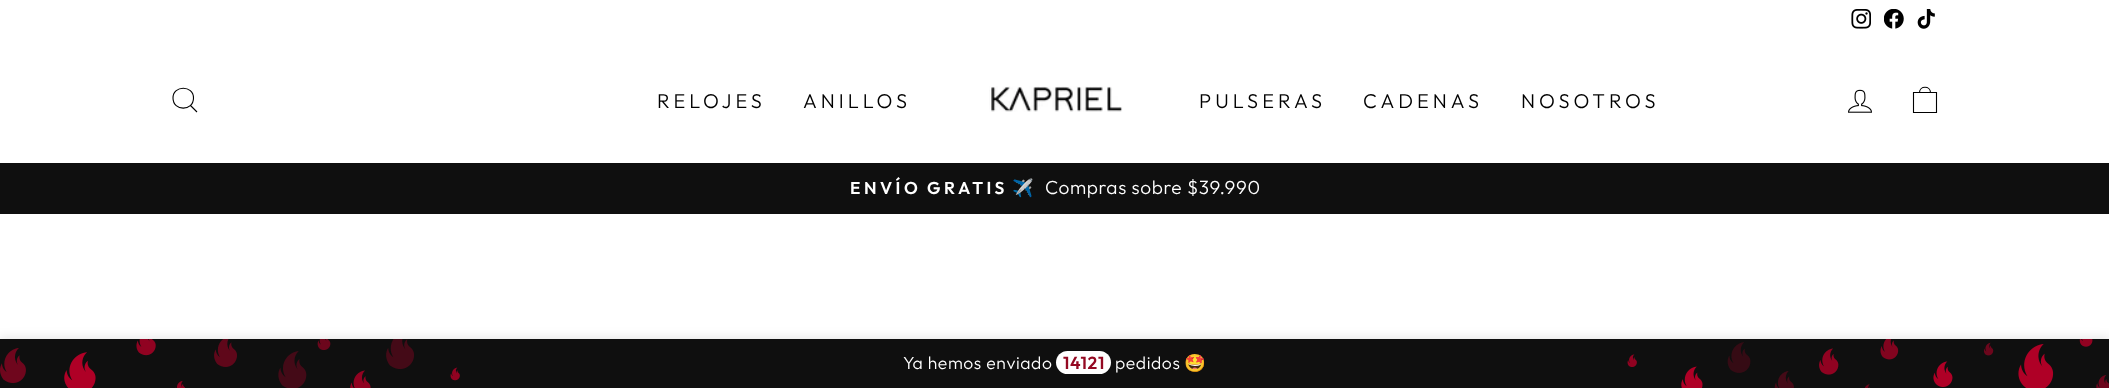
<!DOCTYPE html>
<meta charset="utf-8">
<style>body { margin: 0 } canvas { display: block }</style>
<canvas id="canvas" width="2109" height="388"></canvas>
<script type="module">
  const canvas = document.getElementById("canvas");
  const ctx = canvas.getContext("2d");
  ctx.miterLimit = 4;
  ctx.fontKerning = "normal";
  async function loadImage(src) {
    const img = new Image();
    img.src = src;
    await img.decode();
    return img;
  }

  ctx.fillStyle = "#ffffff";
  ctx.fillRect(0, 0, 2109, 388);
  ctx.drawImage(await loadImage("img1.png"), 1851, 9, 20, 20);
  ctx.drawImage(await loadImage("img2.png"), 1884, 9, 20, 20);
  ctx.drawImage(await loadImage("img3.png"), 1917, 9, 18, 20);
  ctx.fillStyle = "#0f0f0f";
  ctx.fillRect(0, 163, 2109, 51);
  ctx.fillStyle = "rgba(0, 0, 0, 0.2)";
  ctx.filter = "blur(0.5px)";
  ctx.beginPath();
  ctx.rect(0, 39, 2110, 124);
  ctx.fill();
  ctx.filter = "none";
  ctx.fillStyle = "#ffffff";
  ctx.fillRect(0, 39, 2109, 124);
  ctx.beginPath();
  ctx.moveTo(193.5, 98);
  ctx.bezierCurveTo(193.5, 111.5, 173, 111.5, 173, 98);
  ctx.bezierCurveTo(173, 85, 193.5, 85, 193.5, 98);
  ctx.closePath();
  ctx.moveTo(197, 112);
  ctx.lineTo(190.5, 105.5);
  ctx.strokeStyle = "#000000";
  ctx.lineWidth = 1.1;
  ctx.stroke();
  ctx.letterSpacing = "4px";
  ctx.font = "300 20px Outfit";
  ctx.fillStyle = "#000000";
  ctx.fillText("RELOJES", 657, 108);
  ctx.fillText("ANILLOS", 803, 108);
  ctx.drawImage(await loadImage("img4.png"), 989, 86, 134, 26);
  ctx.fillText("PULSERAS", 1199, 108);
  ctx.fillText("CADENAS", 1363, 108);
  ctx.fillText("NOSOTROS", 1521, 108);
  ctx.drawImage(await loadImage("img5.png"), 1848, 89, 24, 24);
  ctx.beginPath();
  ctx.moveTo(1913.5, 92.5);
  ctx.lineTo(1936.5, 92.5);
  ctx.lineTo(1936.5, 112.5);
  ctx.lineTo(1913.5, 112.5);
  ctx.closePath();
  ctx.moveTo(1919.5, 92.5);
  ctx.bezierCurveTo(1919.5, 85.5, 1930.5, 85.5, 1930.5, 92.5);
  ctx.stroke();
  ctx.letterSpacing = "3.5px";
  ctx.wordSpacing = "-1px";
  ctx.font = "600 17.25px Outfit";
  ctx.fillStyle = "#ffffff";
  ctx.fillText("ENVÍO GRATIS", 850, 194);
  ctx.wordSpacing = "0px";
  ctx.font = "bold 17.25px Noto Color Emoji";
  ctx.fillText("✈️", 1012, 194);
  ctx.letterSpacing = "0.6px";
  ctx.font = "300 19.1px Outfit";
  ctx.fillText("Compras sobre $39.990", 1045, 194);
  ctx.fillStyle = "rgba(0, 0, 0, 0.11)";
  ctx.filter = "blur(5.5px)";
  ctx.beginPath();
  ctx.rect(-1, 338, 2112, 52);
  ctx.fill();
  ctx.filter = "none";
  ctx.fillStyle = "#0f0f0f";
  ctx.fillRect(0, 339, 2109, 49);
  ctx.drawImage(await loadImage("img6.png"), 0, 339, 2109, 49);
  ctx.font = "300 17.5px Outfit";
  ctx.fillStyle = "#ffffff";
  ctx.fillText("Ya hemos enviado", 903, 369);
  ctx.beginPath();
  ctx.roundRect(1056, 351, 55, 23, 11.5);
  ctx.fill();
  ctx.font = "600 17.5px Outfit";
  ctx.fillStyle = "#940922";
  ctx.fillText("14121", 1063, 369);
  ctx.font = "300 17.5px Outfit";
  ctx.fillStyle = "#ffffff";
  ctx.fillText("pedidos", 1115, 369);
  ctx.font = "17.5px Noto Color Emoji";
  ctx.fillText("🤩", 1184, 369);
</script>
